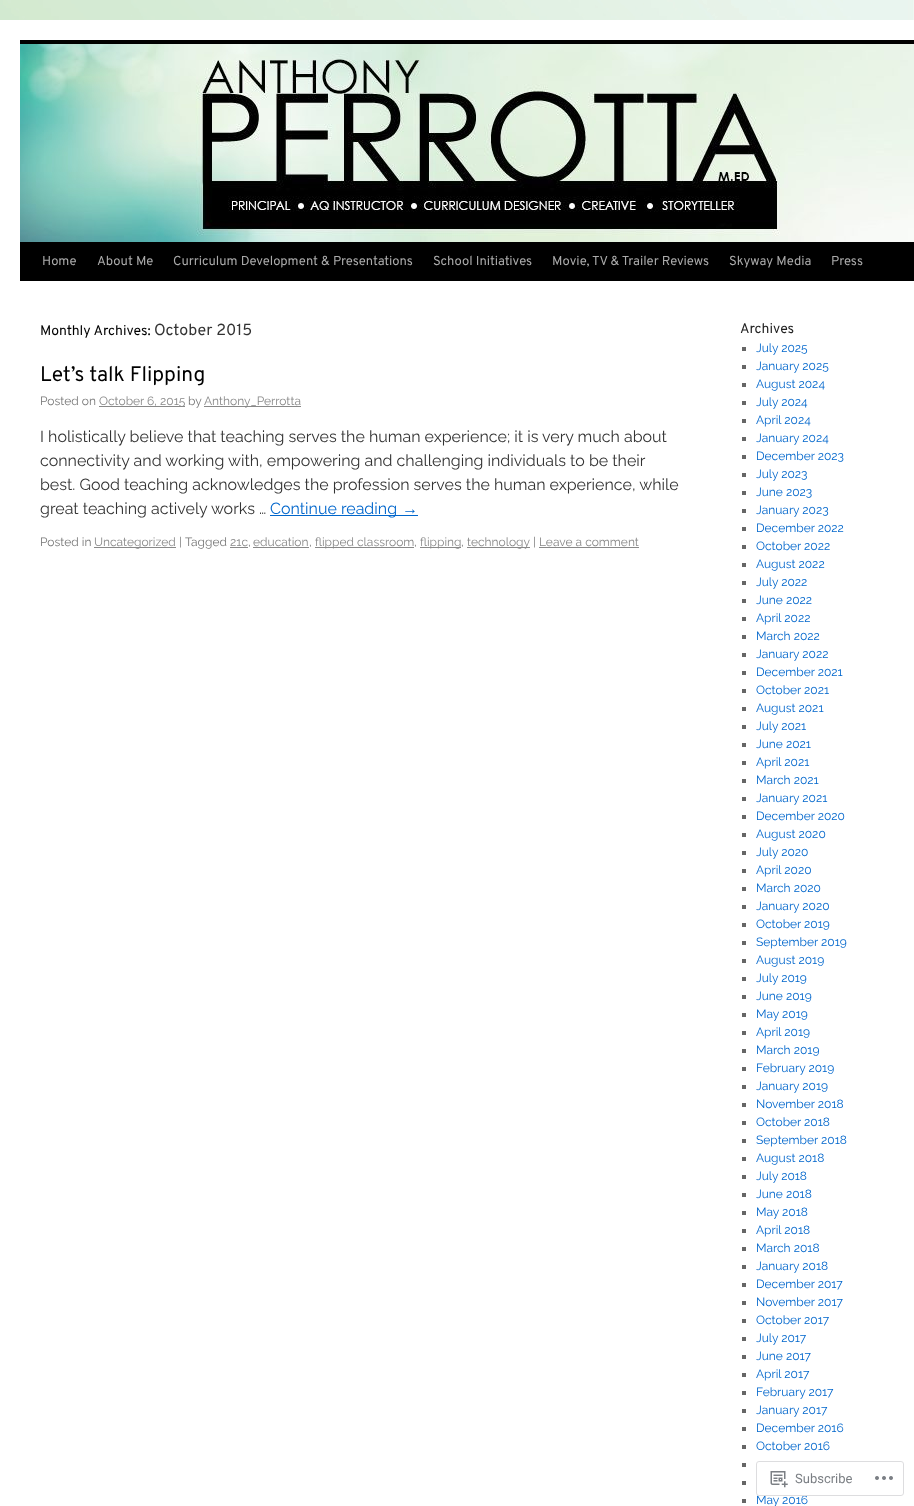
<!DOCTYPE html>
<meta charset="utf-8">
<style>body { margin: 0 } canvas { display: block }</style>
<canvas id="canvas" width="914" height="1506"></canvas>
<script type="module">
  const canvas = document.getElementById("canvas");
  const ctx = canvas.getContext("2d");
  ctx.miterLimit = 4;
  ctx.fontKerning = "normal";
  async function loadImage(src) {
    const img = new Image();
    img.src = src;
    await img.decode();
    return img;
  }

  ctx.fillStyle = "#ffffff";
  ctx.fillRect(0, 0, 914, 1506);
  ctx.drawImage(await loadImage("img1.png"), 0, 0, 914, 20);
  ctx.fillStyle = "#000000";
  ctx.fillRect(20, 40, 894, 4);
  ctx.fillRect(20, 242, 894, 39);
  ctx.drawImage(await loadImage("img2.png"), 20, 44, 894, 198);
  ctx.font = "13px Overpass";
  ctx.fillStyle = "#aaaaaa";
  ctx.fillText("Home", 42, 265);
  ctx.fillText("About Me", 97, 265);
  ctx.fillText("Curriculum Development & Presentations", 173, 265);
  ctx.fillText("School Initiatives", 433, 265);
  ctx.fillText("Movie, TV & Trailer Reviews", 552, 265);
  ctx.fillText("Skyway Media", 729, 265);
  ctx.fillText("Press", 831, 265);
  ctx.font = "14px Overpass";
  ctx.fillStyle = "#000000";
  ctx.fillText("Monthly Archives:", 40, 335);
  ctx.font = "16px Overpass";
  ctx.fillStyle = "#333333";
  ctx.fillText("October 2015", 154, 335);
  ctx.font = "21px Overpass";
  ctx.fillStyle = "#000000";
  ctx.fillText("Let’s talk Flipping", 40, 381);
  ctx.font = "12px Raleway";
  ctx.fillStyle = "#777777";
  ctx.fillText("Posted on", 40, 405);
  ctx.fillStyle = "#888888";
  ctx.fillRect(99, 406, 86, 1);
  ctx.fillText("October 6, 2015", 99, 405);
  ctx.fillStyle = "#777777";
  ctx.fillText("by", 188, 405);
  ctx.fillStyle = "#888888";
  ctx.fillRect(204, 406, 97, 1);
  ctx.fillText("Anthony_Perrotta", 204, 405);
  ctx.font = "16px Raleway";
  ctx.fillStyle = "#333333";
  ctx.fillText("I holistically believe that teaching serves the human experience; it is very much about", 40, 442);
  ctx.fillText("connectivity and working with, empowering and challenging individuals to be their", 40, 466);
  ctx.fillText("best. Good teaching acknowledges the profession serves the human experience, while", 40, 490);
  ctx.fillText("great teaching actively works …", 40, 514);
  ctx.fillStyle = "#0066cc";
  ctx.fillRect(270, 515, 148, 1);
  ctx.fillText("Continue reading", 270, 514);
  ctx.font = "16px Liberation Sans";
  ctx.fillText("→", 402, 514);
  ctx.font = "12px Raleway";
  ctx.fillStyle = "#777777";
  ctx.fillText("Posted in", 40, 546);
  ctx.fillStyle = "#888888";
  ctx.fillRect(94, 547, 82, 1);
  ctx.fillText("Uncategorized", 94, 546);
  ctx.fillStyle = "#777777";
  ctx.fillText("|", 179, 546);
  ctx.fillText("Tagged", 185, 546);
  ctx.fillStyle = "#888888";
  ctx.fillText("21c", 230, 546);
  ctx.fillStyle = "#777777";
  ctx.fillText(",", 248, 546);
  ctx.fillStyle = "#888888";
  ctx.fillRect(230, 547, 18, 1);
  ctx.fillText("education", 253, 546);
  ctx.fillStyle = "#777777";
  ctx.fillText(",", 309, 546);
  ctx.fillStyle = "#888888";
  ctx.fillRect(253, 547, 56, 1);
  ctx.fillRect(315, 547, 99, 1);
  ctx.fillText("flipped classroom", 315, 546);
  ctx.fillStyle = "#777777";
  ctx.fillText(",", 414, 546);
  ctx.fillStyle = "#888888";
  ctx.fillRect(420, 547, 41, 1);
  ctx.fillText("flipping", 420, 546);
  ctx.fillStyle = "#777777";
  ctx.fillText(",", 461, 546);
  ctx.fillStyle = "#888888";
  ctx.fillRect(467, 547, 63, 1);
  ctx.fillText("technology", 467, 546);
  ctx.fillStyle = "#777777";
  ctx.fillText("|", 533, 546);
  ctx.fillStyle = "#888888";
  ctx.fillText("Leave a comment", 539, 546);
  ctx.fillRect(539, 547, 100, 1);
  ctx.font = "14px Overpass";
  ctx.fillStyle = "#222222";
  ctx.fillText("Archives", 740, 333);
  ctx.fillStyle = "#666666";
  ctx.fillRect(742, 347, 4, 4);
  ctx.font = "12px Raleway";
  ctx.fillStyle = "#0066cc";
  ctx.fillText("July 2025", 756, 352);
  ctx.fillStyle = "#666666";
  ctx.fillRect(742, 365, 4, 4);
  ctx.fillStyle = "#0066cc";
  ctx.fillText("January 2025", 756, 370);
  ctx.fillStyle = "#666666";
  ctx.fillRect(742, 383, 4, 4);
  ctx.fillStyle = "#0066cc";
  ctx.fillText("August 2024", 756, 388);
  ctx.fillStyle = "#666666";
  ctx.fillRect(742, 401, 4, 4);
  ctx.fillStyle = "#0066cc";
  ctx.fillText("July 2024", 756, 406);
  ctx.fillStyle = "#666666";
  ctx.fillRect(742, 419, 4, 4);
  ctx.fillStyle = "#0066cc";
  ctx.fillText("April 2024", 756, 424);
  ctx.fillStyle = "#666666";
  ctx.fillRect(742, 437, 4, 4);
  ctx.fillStyle = "#0066cc";
  ctx.fillText("January 2024", 756, 442);
  ctx.fillStyle = "#666666";
  ctx.fillRect(742, 455, 4, 4);
  ctx.fillStyle = "#0066cc";
  ctx.fillText("December 2023", 756, 460);
  ctx.fillStyle = "#666666";
  ctx.fillRect(742, 473, 4, 4);
  ctx.fillStyle = "#0066cc";
  ctx.fillText("July 2023", 756, 478);
  ctx.fillStyle = "#666666";
  ctx.fillRect(742, 491, 4, 4);
  ctx.fillStyle = "#0066cc";
  ctx.fillText("June 2023", 756, 496);
  ctx.fillStyle = "#666666";
  ctx.fillRect(742, 509, 4, 4);
  ctx.fillStyle = "#0066cc";
  ctx.fillText("January 2023", 756, 514);
  ctx.fillStyle = "#666666";
  ctx.fillRect(742, 527, 4, 4);
  ctx.fillStyle = "#0066cc";
  ctx.fillText("December 2022", 756, 532);
  ctx.fillStyle = "#666666";
  ctx.fillRect(742, 545, 4, 4);
  ctx.fillStyle = "#0066cc";
  ctx.fillText("October 2022", 756, 550);
  ctx.fillStyle = "#666666";
  ctx.fillRect(742, 563, 4, 4);
  ctx.fillStyle = "#0066cc";
  ctx.fillText("August 2022", 756, 568);
  ctx.fillStyle = "#666666";
  ctx.fillRect(742, 581, 4, 4);
  ctx.fillStyle = "#0066cc";
  ctx.fillText("July 2022", 756, 586);
  ctx.fillStyle = "#666666";
  ctx.fillRect(742, 599, 4, 4);
  ctx.fillStyle = "#0066cc";
  ctx.fillText("June 2022", 756, 604);
  ctx.fillStyle = "#666666";
  ctx.fillRect(742, 617, 4, 4);
  ctx.fillStyle = "#0066cc";
  ctx.fillText("April 2022", 756, 622);
  ctx.fillStyle = "#666666";
  ctx.fillRect(742, 635, 4, 4);
  ctx.fillStyle = "#0066cc";
  ctx.fillText("March 2022", 756, 640);
  ctx.fillStyle = "#666666";
  ctx.fillRect(742, 653, 4, 4);
  ctx.fillStyle = "#0066cc";
  ctx.fillText("January 2022", 756, 658);
  ctx.fillStyle = "#666666";
  ctx.fillRect(742, 671, 4, 4);
  ctx.fillStyle = "#0066cc";
  ctx.fillText("December 2021", 756, 676);
  ctx.fillStyle = "#666666";
  ctx.fillRect(742, 689, 4, 4);
  ctx.fillStyle = "#0066cc";
  ctx.fillText("October 2021", 756, 694);
  ctx.fillStyle = "#666666";
  ctx.fillRect(742, 707, 4, 4);
  ctx.fillStyle = "#0066cc";
  ctx.fillText("August 2021", 756, 712);
  ctx.fillStyle = "#666666";
  ctx.fillRect(742, 725, 4, 4);
  ctx.fillStyle = "#0066cc";
  ctx.fillText("July 2021", 756, 730);
  ctx.fillStyle = "#666666";
  ctx.fillRect(742, 743, 4, 4);
  ctx.fillStyle = "#0066cc";
  ctx.fillText("June 2021", 756, 748);
  ctx.fillStyle = "#666666";
  ctx.fillRect(742, 761, 4, 4);
  ctx.fillStyle = "#0066cc";
  ctx.fillText("April 2021", 756, 766);
  ctx.fillStyle = "#666666";
  ctx.fillRect(742, 779, 4, 4);
  ctx.fillStyle = "#0066cc";
  ctx.fillText("March 2021", 756, 784);
  ctx.fillStyle = "#666666";
  ctx.fillRect(742, 797, 4, 4);
  ctx.fillStyle = "#0066cc";
  ctx.fillText("January 2021", 756, 802);
  ctx.fillStyle = "#666666";
  ctx.fillRect(742, 815, 4, 4);
  ctx.fillStyle = "#0066cc";
  ctx.fillText("December 2020", 756, 820);
  ctx.fillStyle = "#666666";
  ctx.fillRect(742, 833, 4, 4);
  ctx.fillStyle = "#0066cc";
  ctx.fillText("August 2020", 756, 838);
  ctx.fillStyle = "#666666";
  ctx.fillRect(742, 851, 4, 4);
  ctx.fillStyle = "#0066cc";
  ctx.fillText("July 2020", 756, 856);
  ctx.fillStyle = "#666666";
  ctx.fillRect(742, 869, 4, 4);
  ctx.fillStyle = "#0066cc";
  ctx.fillText("April 2020", 756, 874);
  ctx.fillStyle = "#666666";
  ctx.fillRect(742, 887, 4, 4);
  ctx.fillStyle = "#0066cc";
  ctx.fillText("March 2020", 756, 892);
  ctx.fillStyle = "#666666";
  ctx.fillRect(742, 905, 4, 4);
  ctx.fillStyle = "#0066cc";
  ctx.fillText("January 2020", 756, 910);
  ctx.fillStyle = "#666666";
  ctx.fillRect(742, 923, 4, 4);
  ctx.fillStyle = "#0066cc";
  ctx.fillText("October 2019", 756, 928);
  ctx.fillStyle = "#666666";
  ctx.fillRect(742, 941, 4, 4);
  ctx.fillStyle = "#0066cc";
  ctx.fillText("September 2019", 756, 946);
  ctx.fillStyle = "#666666";
  ctx.fillRect(742, 959, 4, 4);
  ctx.fillStyle = "#0066cc";
  ctx.fillText("August 2019", 756, 964);
  ctx.fillStyle = "#666666";
  ctx.fillRect(742, 977, 4, 4);
  ctx.fillStyle = "#0066cc";
  ctx.fillText("July 2019", 756, 982);
  ctx.fillStyle = "#666666";
  ctx.fillRect(742, 995, 4, 4);
  ctx.fillStyle = "#0066cc";
  ctx.fillText("June 2019", 756, 1000);
  ctx.fillStyle = "#666666";
  ctx.fillRect(742, 1013, 4, 4);
  ctx.fillStyle = "#0066cc";
  ctx.fillText("May 2019", 756, 1018);
  ctx.fillStyle = "#666666";
  ctx.fillRect(742, 1031, 4, 4);
  ctx.fillStyle = "#0066cc";
  ctx.fillText("April 2019", 756, 1036);
  ctx.fillStyle = "#666666";
  ctx.fillRect(742, 1049, 4, 4);
  ctx.fillStyle = "#0066cc";
  ctx.fillText("March 2019", 756, 1054);
  ctx.fillStyle = "#666666";
  ctx.fillRect(742, 1067, 4, 4);
  ctx.fillStyle = "#0066cc";
  ctx.fillText("February 2019", 756, 1072);
  ctx.fillStyle = "#666666";
  ctx.fillRect(742, 1085, 4, 4);
  ctx.fillStyle = "#0066cc";
  ctx.fillText("January 2019", 756, 1090);
  ctx.fillStyle = "#666666";
  ctx.fillRect(742, 1103, 4, 4);
  ctx.fillStyle = "#0066cc";
  ctx.fillText("November 2018", 756, 1108);
  ctx.fillStyle = "#666666";
  ctx.fillRect(742, 1121, 4, 4);
  ctx.fillStyle = "#0066cc";
  ctx.fillText("October 2018", 756, 1126);
  ctx.fillStyle = "#666666";
  ctx.fillRect(742, 1139, 4, 4);
  ctx.fillStyle = "#0066cc";
  ctx.fillText("September 2018", 756, 1144);
  ctx.fillStyle = "#666666";
  ctx.fillRect(742, 1157, 4, 4);
  ctx.fillStyle = "#0066cc";
  ctx.fillText("August 2018", 756, 1162);
  ctx.fillStyle = "#666666";
  ctx.fillRect(742, 1175, 4, 4);
  ctx.fillStyle = "#0066cc";
  ctx.fillText("July 2018", 756, 1180);
  ctx.fillStyle = "#666666";
  ctx.fillRect(742, 1193, 4, 4);
  ctx.fillStyle = "#0066cc";
  ctx.fillText("June 2018", 756, 1198);
  ctx.fillStyle = "#666666";
  ctx.fillRect(742, 1211, 4, 4);
  ctx.fillStyle = "#0066cc";
  ctx.fillText("May 2018", 756, 1216);
  ctx.fillStyle = "#666666";
  ctx.fillRect(742, 1229, 4, 4);
  ctx.fillStyle = "#0066cc";
  ctx.fillText("April 2018", 756, 1234);
  ctx.fillStyle = "#666666";
  ctx.fillRect(742, 1247, 4, 4);
  ctx.fillStyle = "#0066cc";
  ctx.fillText("March 2018", 756, 1252);
  ctx.fillStyle = "#666666";
  ctx.fillRect(742, 1265, 4, 4);
  ctx.fillStyle = "#0066cc";
  ctx.fillText("January 2018", 756, 1270);
  ctx.fillStyle = "#666666";
  ctx.fillRect(742, 1283, 4, 4);
  ctx.fillStyle = "#0066cc";
  ctx.fillText("December 2017", 756, 1288);
  ctx.fillStyle = "#666666";
  ctx.fillRect(742, 1301, 4, 4);
  ctx.fillStyle = "#0066cc";
  ctx.fillText("November 2017", 756, 1306);
  ctx.fillStyle = "#666666";
  ctx.fillRect(742, 1319, 4, 4);
  ctx.fillStyle = "#0066cc";
  ctx.fillText("October 2017", 756, 1324);
  ctx.fillStyle = "#666666";
  ctx.fillRect(742, 1337, 4, 4);
  ctx.fillStyle = "#0066cc";
  ctx.fillText("July 2017", 756, 1342);
  ctx.fillStyle = "#666666";
  ctx.fillRect(742, 1355, 4, 4);
  ctx.fillStyle = "#0066cc";
  ctx.fillText("June 2017", 756, 1360);
  ctx.fillStyle = "#666666";
  ctx.fillRect(742, 1373, 4, 4);
  ctx.fillStyle = "#0066cc";
  ctx.fillText("April 2017", 756, 1378);
  ctx.fillStyle = "#666666";
  ctx.fillRect(742, 1391, 4, 4);
  ctx.fillStyle = "#0066cc";
  ctx.fillText("February 2017", 756, 1396);
  ctx.fillStyle = "#666666";
  ctx.fillRect(742, 1409, 4, 4);
  ctx.fillStyle = "#0066cc";
  ctx.fillText("January 2017", 756, 1414);
  ctx.fillStyle = "#666666";
  ctx.fillRect(742, 1427, 4, 4);
  ctx.fillStyle = "#0066cc";
  ctx.fillText("December 2016", 756, 1432);
  ctx.fillStyle = "#666666";
  ctx.fillRect(742, 1445, 4, 4);
  ctx.fillStyle = "#0066cc";
  ctx.fillText("October 2016", 756, 1450);
  ctx.fillStyle = "#666666";
  ctx.fillRect(742, 1463, 4, 4);
  ctx.fillRect(742, 1481, 4, 4);
  ctx.fillRect(742, 1499, 4, 4);
  ctx.fillStyle = "#0066cc";
  ctx.fillText("May 2016", 756, 1504);
  ctx.fillStyle = "rgba(255, 255, 255, 0.98)";
  ctx.beginPath();
  ctx.roundRect(756, 1461, 148, 35, 3);
  ctx.fill();
  ctx.beginPath();
  ctx.roundRect(756.5, 1461.5, 147, 34, 2.5);
  ctx.strokeStyle = "rgba(220, 220, 222, 0.98)";
  ctx.stroke();
  ctx.drawImage(await loadImage("img3.png"), 770, 1471, 18, 17);
  ctx.font = "13px Roboto";
  ctx.fillStyle = "#7b7f84";
  ctx.fillText("Subscribe", 795, 1483);
  ctx.drawImage(await loadImage("img4.png"), 875, 1476, 18, 4);
</script>
